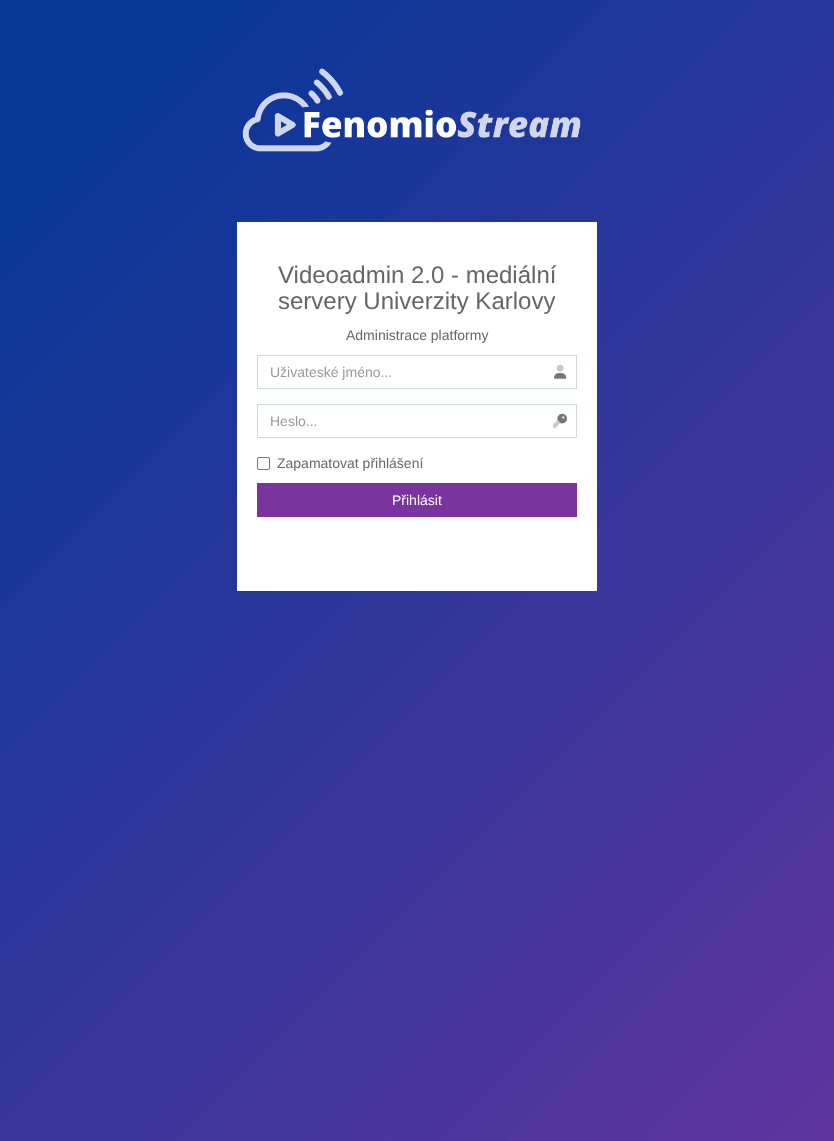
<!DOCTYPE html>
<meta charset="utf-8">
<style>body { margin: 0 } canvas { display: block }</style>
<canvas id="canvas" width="834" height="1141"></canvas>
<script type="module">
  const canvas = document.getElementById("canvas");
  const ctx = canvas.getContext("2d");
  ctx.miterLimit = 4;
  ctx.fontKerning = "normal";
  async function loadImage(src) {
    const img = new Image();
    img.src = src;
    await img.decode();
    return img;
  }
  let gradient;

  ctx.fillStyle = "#ffffff";
  ctx.fillRect(0, 0, 834, 1141);
  gradient = ctx.createLinearGradient(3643, 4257, -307, 307);
  gradient.addColorStop(0.03, "#7a349e");
  gradient.addColorStop(0.38, "#063799");
  gradient.addColorStop(0.68, "#7a349e");
  gradient.addColorStop(0.98, "#063799");
  ctx.fillStyle = gradient;
  ctx.fillRect(0, 0, 834, 1141);
  ctx.drawImage(await loadImage("img1.png"), 242, 68, 339, 84);
  ctx.fillStyle = "#ffffff";
  ctx.fillRect(237, 222, 360, 369);
  ctx.font = "24px Liberation Sans";
  ctx.fillStyle = "#666666";
  ctx.fillText("Videoadmin 2.0 - mediální", 278, 283);
  ctx.fillText("servery Univerzity Karlovy", 278, 309);
  ctx.font = "14px Liberation Sans";
  ctx.fillText("Administrace platformy", 346, 340);
  ctx.strokeStyle = "#d2d6de";
  ctx.strokeRect(257.5, 355.5, 319, 33);
  ctx.fillStyle = "#999999";
  ctx.fillText("Uživateské jméno...", 270, 377);
  ctx.drawImage(await loadImage("img2.png"), 556, 364, 8, 8);
  ctx.drawImage(await loadImage("img3.png"), 554, 373, 13, 6);
  ctx.strokeRect(257.5, 404.5, 319, 33);
  ctx.fillText("Heslo...", 270, 426);
  ctx.drawImage(await loadImage("img4.png"), 557, 413, 10, 11);
  ctx.drawImage(await loadImage("img5.png"), 553, 420, 8, 8);
  ctx.beginPath();
  ctx.roundRect(257.5, 457.5, 12, 12, 1.5);
  ctx.strokeStyle = "#767676";
  ctx.stroke();
  ctx.fillStyle = "#666666";
  ctx.fillText("Zapamatovat přihlášení", 277, 468);
  ctx.fillStyle = "#7a349e";
  ctx.fillRect(257, 483, 320, 34);
  ctx.fillStyle = "#ffffff";
  ctx.fillText("Přihlásit", 392, 505);
</script>
